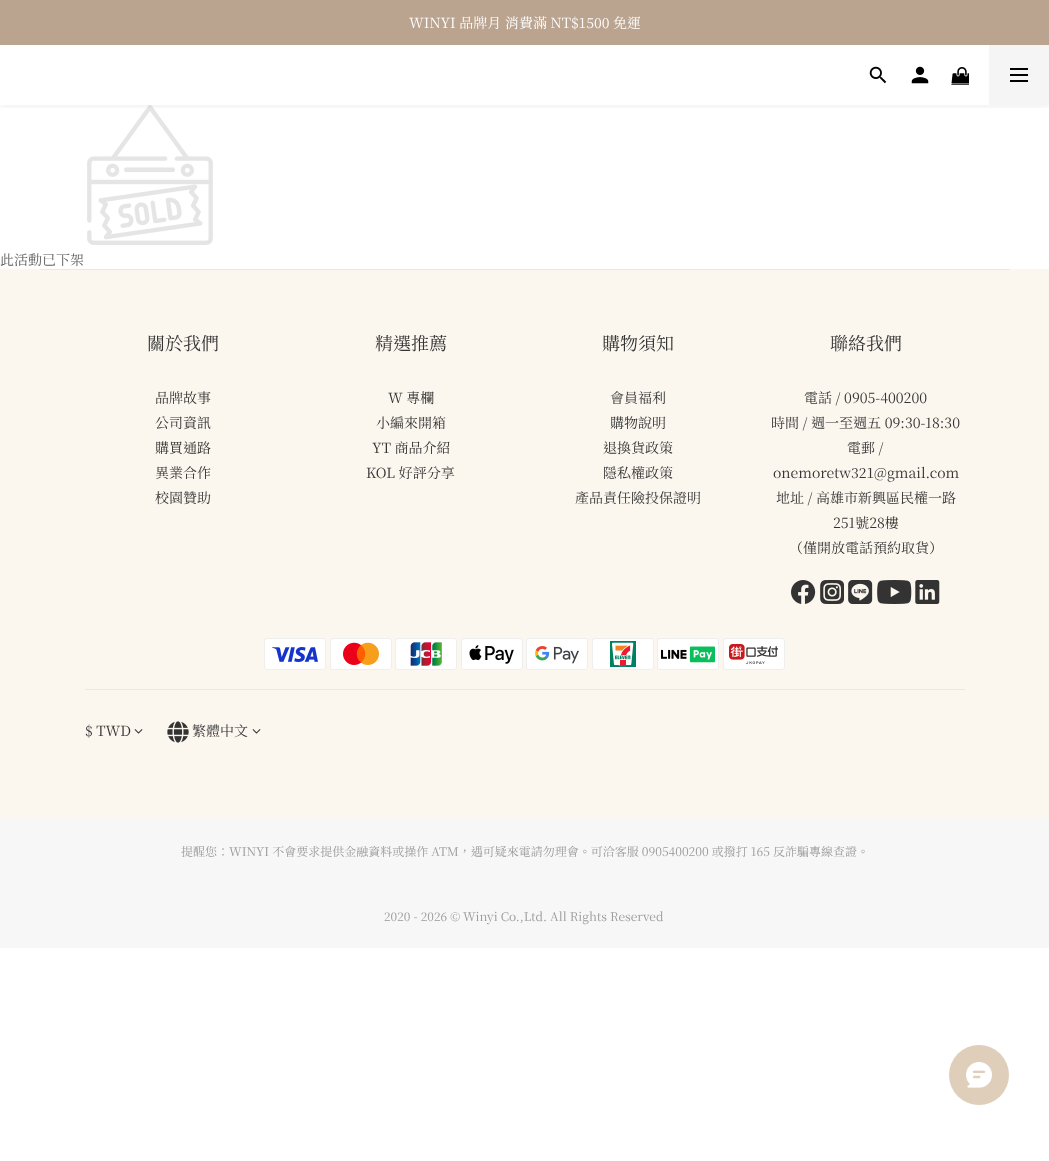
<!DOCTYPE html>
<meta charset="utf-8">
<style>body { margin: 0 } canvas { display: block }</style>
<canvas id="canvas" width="1049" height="1161"></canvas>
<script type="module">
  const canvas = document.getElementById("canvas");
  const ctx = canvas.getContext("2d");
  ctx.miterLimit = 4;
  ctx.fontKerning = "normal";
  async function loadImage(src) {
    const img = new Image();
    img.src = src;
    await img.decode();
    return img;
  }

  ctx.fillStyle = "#ffffff";
  ctx.fillRect(0, 0, 1049, 1161);
  ctx.fillStyle = "#baa38f";
  ctx.fillRect(0, 0, 1049, 45);
  ctx.font = "14px Noto Serif TC";
  ctx.fillStyle = "#ffffff";
  ctx.fillText("WINYI 品牌月 消費滿 NT$1500 免運", 409, 28);
  ctx.drawImage(await loadImage("img4.png"), 87, 105, 126, 140);
  ctx.save();
  ctx.beginPath();
  ctx.rect(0, 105, 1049, 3);
  ctx.clip();
  ctx.fillStyle = "rgba(0, 0, 0, 0.06)";
  ctx.filter = "blur(3px)";
  ctx.beginPath();
  ctx.rect(0, 47, 1049, 60);
  ctx.fill();
  ctx.filter = "none";
  ctx.restore();
  ctx.drawImage(await loadImage("img1.png"), 869, 66, 18, 18);
  ctx.drawImage(await loadImage("img2.png"), 911, 66, 18, 18);
  ctx.drawImage(await loadImage("img3.png"), 951, 67, 18, 18);
  ctx.fillStyle = "#f5f5f5";
  ctx.fillRect(989, 45, 60, 60);
  ctx.fillStyle = "#000000";
  ctx.fillRect(1010, 74, 18, 2);
  ctx.fillRect(1010, 68, 18, 2);
  ctx.fillRect(1010, 80, 18, 2);
  ctx.fillStyle = "#5d5d5d";
  ctx.fillText("此活動已下架", 0, 265);
  ctx.fillStyle = "#fbf7ef";
  ctx.fillRect(0, 269, 1049, 549);
  ctx.fillStyle = "#f3e7ce";
  ctx.fillRect(40, 269, 970, 1);
  ctx.font = "18px Noto Serif TC";
  ctx.fillStyle = "#333333";
  ctx.fillText("關於我們", 147, 350);
  ctx.font = "14px Noto Serif TC";
  ctx.fillText("品牌故事", 155, 403);
  ctx.fillText("公司資訊", 155, 428);
  ctx.fillText("購買通路", 155, 453);
  ctx.fillText("異業合作", 155, 478);
  ctx.fillText("校園贊助", 155, 503);
  ctx.font = "18px Noto Serif TC";
  ctx.fillText("精選推薦", 375, 350);
  ctx.font = "14px Noto Serif TC";
  ctx.fillText("W 專欄", 388, 403);
  ctx.fillText("小編來開箱", 376, 428);
  ctx.fillText("YT 商品介紹", 372, 453);
  ctx.fillText("KOL 好評分享", 366, 478);
  ctx.font = "18px Noto Serif TC";
  ctx.fillText("購物須知", 602, 350);
  ctx.font = "14px Noto Serif TC";
  ctx.fillText("會員福利", 610, 403);
  ctx.fillText("購物說明", 610, 428);
  ctx.fillText("退換貨政策", 603, 453);
  ctx.fillText("隱私權政策", 603, 478);
  ctx.fillText("產品責任險投保證明", 575, 503);
  ctx.font = "18px Noto Serif TC";
  ctx.fillText("聯絡我們", 830, 350);
  ctx.font = "14px Noto Serif TC";
  ctx.fillText("電話 / 0905-400200", 804, 403);
  ctx.fillText("時間 / 週一至週五 09:30-18:30", 771, 428);
  ctx.fillText("電郵 /", 847, 453);
  ctx.fillText("onemoretw321@gmail.com", 773, 478);
  ctx.fillText("地址 / 高雄市新興區民權一路", 776, 503);
  ctx.fillText("251號28樓", 833, 528);
  ctx.fillText("（僅開放電話預約取貨）", 789, 553);
  ctx.drawImage(await loadImage("img5.png"), 791, 580, 25, 24);
  ctx.drawImage(await loadImage("img6.png"), 820, 580, 24, 24);
  ctx.drawImage(await loadImage("img7.png"), 848, 580, 25, 24);
  ctx.drawImage(await loadImage("img8.png"), 877, 580, 35, 24);
  ctx.drawImage(await loadImage("img9.png"), 915, 580, 25, 24);
  ctx.drawImage(await loadImage("img10.png"), 264, 638, 62, 32);
  ctx.drawImage(await loadImage("img11.png"), 330, 638, 62, 32);
  ctx.drawImage(await loadImage("img12.png"), 395, 638, 62, 32);
  ctx.drawImage(await loadImage("img13.png"), 461, 638, 62, 32);
  ctx.drawImage(await loadImage("img14.png"), 526, 638, 62, 32);
  ctx.drawImage(await loadImage("img15.png"), 592, 638, 62, 32);
  ctx.drawImage(await loadImage("img16.png"), 657, 638, 62, 32);
  ctx.drawImage(await loadImage("img17.png"), 723, 638, 62, 32);
  ctx.fillStyle = "#f3e7ce";
  ctx.fillRect(85, 689, 880, 1);
  ctx.fillStyle = "#333333";
  ctx.fillText("$ TWD", 85, 736);
  ctx.drawImage(await loadImage("img18.png"), 134, 729, 9, 5);
  ctx.drawImage(await loadImage("img19.png"), 167, 721, 22, 22);
  ctx.fillText("繁體中文", 192, 736);
  ctx.drawImage(await loadImage("img18.png"), 252, 729, 9, 5);
  ctx.fillStyle = "#f7f7f7";
  ctx.fillRect(0, 818, 1049, 130);
  ctx.font = "12px Noto Serif TC";
  ctx.fillStyle = "#999999";
  ctx.fillText("提醒您：WINYI 不會要求提供金融資料或操作 ATM，遇可疑來電請勿理會。可洽客服 0905400200 或撥打 165 反詐騙專線查證。", 181, 856);
  ctx.fillText("2020 - 2026 © Winyi Co.,Ltd. All Rights Reserved", 384, 921);
  ctx.fillStyle = "#dfceba";
  ctx.beginPath();
  ctx.arc(979, 1075, 30, 0, Math.PI * 2);
  ctx.fill();
  ctx.drawImage(await loadImage("img20.png"), 966, 1062, 26, 26);
</script>
